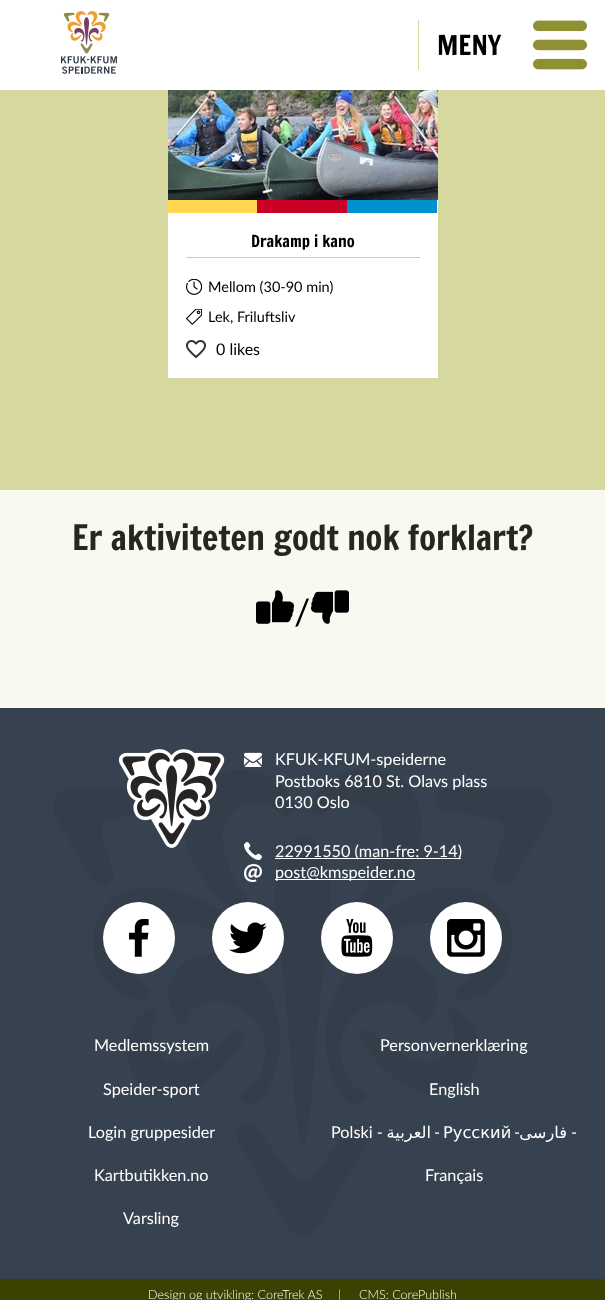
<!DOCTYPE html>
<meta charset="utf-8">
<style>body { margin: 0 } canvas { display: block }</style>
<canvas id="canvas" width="605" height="1300"></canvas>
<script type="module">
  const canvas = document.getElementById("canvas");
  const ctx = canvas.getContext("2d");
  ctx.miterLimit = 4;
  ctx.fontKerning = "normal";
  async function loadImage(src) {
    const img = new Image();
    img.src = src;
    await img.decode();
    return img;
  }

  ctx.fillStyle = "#f9f9f1";
  ctx.fillRect(0, 0, 605, 1300);
  ctx.fillStyle = "#ffffff";
  ctx.fillRect(0, 0, 605, 90);
  ctx.drawImage(await loadImage("img1.png"), 63, 11, 47, 43);
  ctx.drawImage(await loadImage("img2.png"), 61, 56, 56, 18);
  ctx.fillStyle = "#d6d8a0";
  ctx.fillRect(418, 20, 1, 50);
  ctx.font = "27px Francois One";
  ctx.fillStyle = "#000000";
  ctx.fillText("MENY", 437, 55);
  ctx.drawImage(await loadImage("img3.png"), 533, 20, 54, 50);
  ctx.fillStyle = "#d6d8a0";
  ctx.fillRect(0, 90, 605, 400);
  ctx.fillStyle = "#ffffff";
  ctx.fillRect(168, 200, 270, 178);
  ctx.drawImage(await loadImage("img4.png"), 168, 90, 270, 110);
  ctx.fillStyle = "#ffd64d";
  ctx.fillRect(168, 200, 89, 13);
  ctx.fillStyle = "#cb0026";
  ctx.fillRect(257, 200, 90, 13);
  ctx.fillStyle = "#0092d0";
  ctx.fillRect(347, 200, 90, 13);
  ctx.fillStyle = "#c9c9c8";
  ctx.fillRect(186, 257, 234, 1);
  ctx.font = "16.25px Francois One";
  ctx.fillStyle = "#000000";
  ctx.fillText("Drakamp i kano", 251, 247);
  ctx.drawImage(await loadImage("img5.png"), 186, 279, 16, 16);
  ctx.font = "14.5px Lato";
  ctx.fillText("Mellom (30-90 min)", 208, 292);
  ctx.drawImage(await loadImage("img6.png"), 186, 309, 16, 16);
  ctx.fillText("Lek, Friluftsliv", 208, 322);
  ctx.drawImage(await loadImage("img7.png"), 186, 340, 20, 19);
  ctx.font = "16px Lato";
  ctx.fillText("0 likes", 216, 355);
  ctx.font = "34.25px Francois One";
  ctx.fillStyle = "#272722";
  ctx.fillText("Er aktiviteten godt nok forklart?", 72, 550);
  ctx.drawImage(await loadImage("img8.png"), 256, 590, 38, 34);
  ctx.font = "36px Lato";
  ctx.fillStyle = "#000000";
  ctx.fillText("/", 294, 625);
  ctx.drawImage(await loadImage("img9.png"), 311, 590, 38, 34);
  ctx.fillStyle = "#374250";
  ctx.fillRect(0, 708, 605, 571);
  ctx.drawImage(await loadImage("img10.png"), 53, 770, 499, 466);
  ctx.drawImage(await loadImage("img11.png"), 118, 749, 107, 99);
  ctx.drawImage(await loadImage("img12.png"), 244, 752, 18, 15);
  ctx.font = "16.25px Lato";
  ctx.fillStyle = "#ffffff";
  ctx.fillText("KFUK-KFUM-speiderne", 275, 765);
  ctx.fillText("Postboks 6810 St. Olavs plass", 275, 787);
  ctx.fillText("0130 Oslo", 275, 808);
  ctx.drawImage(await loadImage("img13.png"), 244, 842, 18, 18);
  ctx.fillRect(275, 858, 186, 1);
  ctx.fillText("22991550 (man-fre: 9-14)", 275, 857);
  ctx.drawImage(await loadImage("img14.png"), 244, 864, 18, 18);
  ctx.fillRect(275, 879, 140, 1);
  ctx.fillText("post@kmspeider.no", 275, 878);
  ctx.beginPath();
  ctx.arc(139, 938, 36, 0, Math.PI * 2);
  ctx.fill();
  ctx.drawImage(await loadImage("img15.png"), 129, 919, 20, 38);
  ctx.beginPath();
  ctx.arc(248, 938, 36, 0, Math.PI * 2);
  ctx.fill();
  ctx.drawImage(await loadImage("img16.png"), 229, 922, 38, 32);
  ctx.beginPath();
  ctx.arc(357, 938, 36, 0, Math.PI * 2);
  ctx.fill();
  ctx.drawImage(await loadImage("img17.png"), 341, 919, 32, 38);
  ctx.beginPath();
  ctx.arc(466, 938, 36, 0, Math.PI * 2);
  ctx.fill();
  ctx.drawImage(await loadImage("img18.png"), 447, 919, 38, 38);
  ctx.fillText("Medlemssystem", 94, 1051);
  ctx.fillText("Speider-sport", 103, 1095);
  ctx.fillText("Login gruppesider", 88, 1138);
  ctx.fillText("Kartbutikken.no", 94, 1181);
  ctx.fillText("Varsling", 123, 1224);
  ctx.fillText("Personvernerklæring", 380, 1051);
  ctx.fillText("English", 429, 1095);
  ctx.fillText("Polski -", 331, 1138);
  ctx.direction = "rtl";
  ctx.font = "16.25px DejaVu Sans";
  ctx.fillText("العربية", 431, 1138);
  ctx.direction = "ltr";
  ctx.font = "16.25px Lato";
  ctx.fillText("-", 434, 1138);
  ctx.font = "16.25px DejaVu Sans";
  ctx.fillText("Русский", 443, 1138);
  ctx.font = "16.25px Lato";
  ctx.fillText("-", 514, 1138);
  ctx.direction = "rtl";
  ctx.font = "16.25px DejaVu Sans";
  ctx.fillText("فارسی", 567, 1138);
  ctx.direction = "ltr";
  ctx.font = "16.25px Lato";
  ctx.fillText("-", 571, 1138);
  ctx.fillText("Français", 425, 1181);
  ctx.fillStyle = "#3c4102";
  ctx.fillRect(0, 1279, 605, 21);
  ctx.font = "300 12.6px Lato";
  ctx.fillStyle = "#ffffff";
  ctx.fillText("Design og utvikling: CoreTrek AS", 148, 1299);
  ctx.fillText("|", 338, 1299);
  ctx.fillText("CMS: CorePublish", 359, 1299);
</script>
